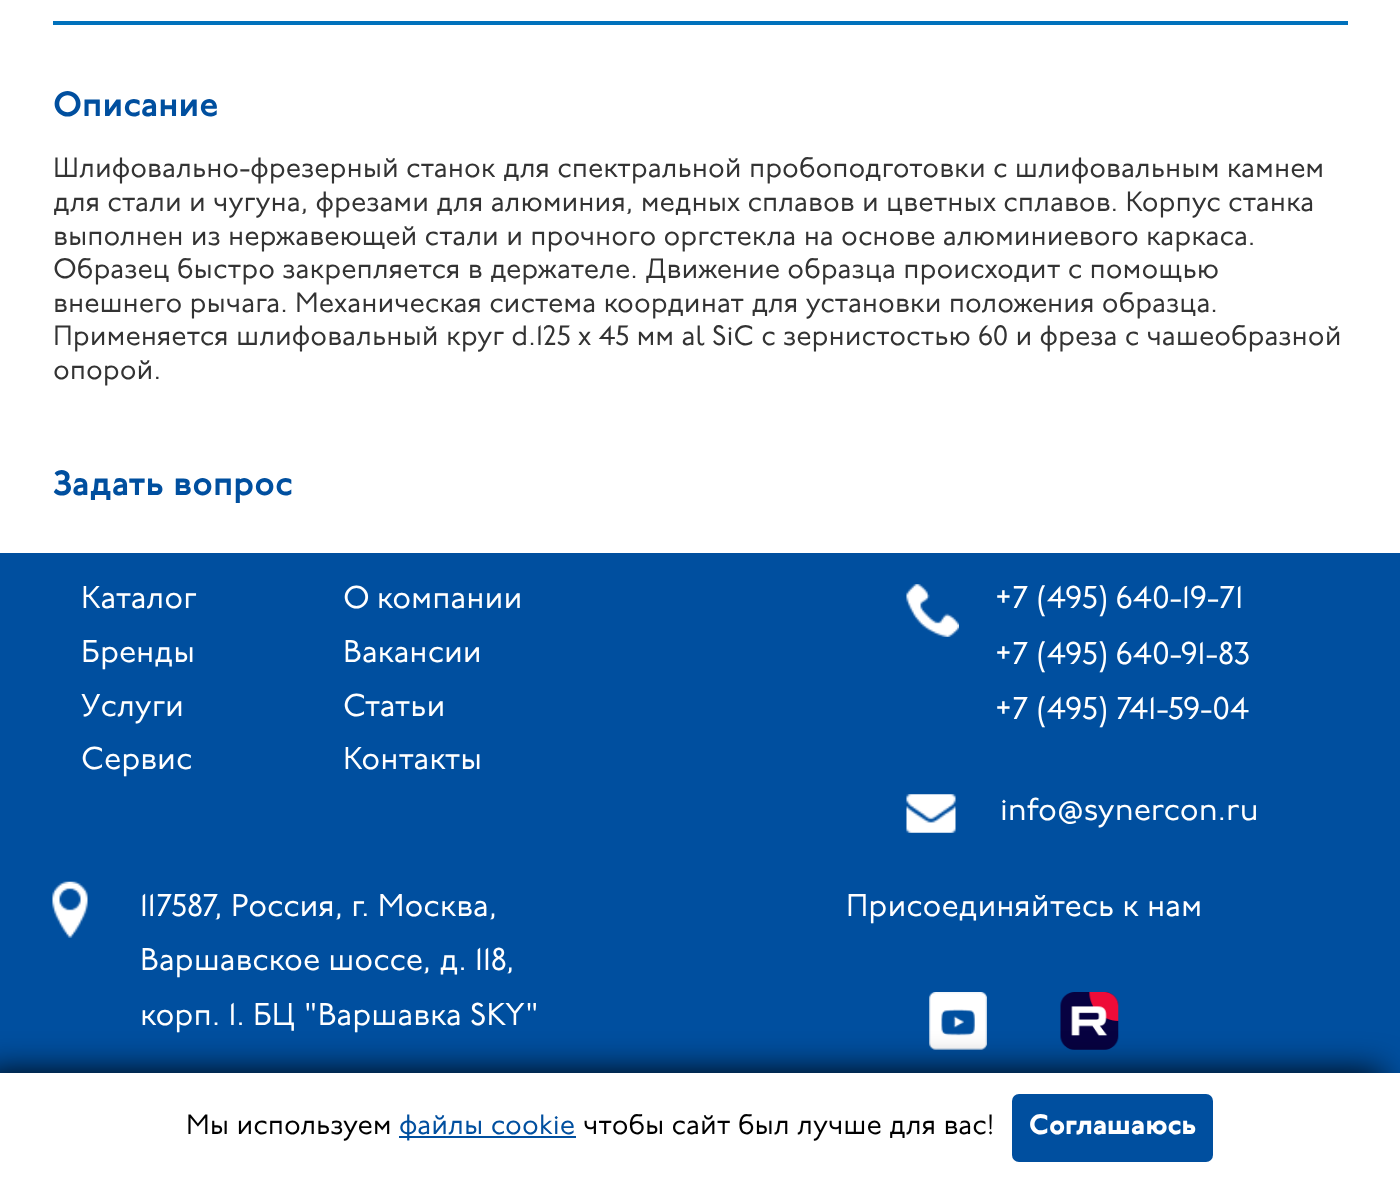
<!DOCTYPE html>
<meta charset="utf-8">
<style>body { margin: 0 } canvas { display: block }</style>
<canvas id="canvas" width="1400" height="1183"></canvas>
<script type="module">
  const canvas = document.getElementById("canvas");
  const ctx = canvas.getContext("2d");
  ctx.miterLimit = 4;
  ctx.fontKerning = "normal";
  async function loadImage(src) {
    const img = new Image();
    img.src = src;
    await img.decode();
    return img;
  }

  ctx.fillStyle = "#ffffff";
  ctx.fillRect(0, 0, 1400, 1183);
  ctx.fillStyle = "#0071bc";
  ctx.fillRect(53, 21, 1295, 4);
  ctx.font = "600 35px 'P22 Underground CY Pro'";
  ctx.fillStyle = "#004f9f";
  ctx.fillText("Описание", 53, 116);
  ctx.font = "28px 'P22 Underground CY Pro'";
  ctx.fillStyle = "#333333";
  ctx.fillText("Шлифовально-фрезерный станок для спектральной пробоподготовки с шлифовальным камнем", 53, 177);
  ctx.fillText("для стали и чугуна, фрезами для алюминия, медных сплавов и цветных сплавов. Корпус станка", 53, 211);
  ctx.fillText("выполнен из нержавеющей стали и прочного оргстекла на основе алюминиевого каркаса.", 53, 245);
  ctx.fillText("Образец быстро закрепляется в держателе. Движение образца происходит с помощью", 53, 278);
  ctx.fillText("внешнего рычага. Механическая система координат для установки положения образца.", 53, 312);
  ctx.fillText("Применяется шлифовальный круг d.125 x 45 мм al SiC с зернистостью 60 и фреза с чашеобразной", 53, 345);
  ctx.fillText("опорой.", 53, 379);
  ctx.font = "600 35px 'P22 Underground CY Pro'";
  ctx.fillStyle = "#004f9f";
  ctx.fillText("Задать вопрос", 53, 495);
  ctx.fillRect(0, 553, 1400, 520);
  ctx.font = "31.5px 'P22 Underground CY Pro'";
  ctx.fillStyle = "#ffffff";
  ctx.fillText("Каталог", 81, 608);
  ctx.fillText("О компании", 343, 608);
  ctx.fillText("Бренды", 81, 662);
  ctx.fillText("Вакансии", 343, 662);
  ctx.fillText("Услуги", 81, 716);
  ctx.fillText("Статьи", 343, 716);
  ctx.fillText("Сервис", 81, 769);
  ctx.fillText("Контакты", 343, 769);
  ctx.drawImage(await loadImage("img1.png"), 906, 584, 53, 53);
  ctx.fillText("+7 (495) 640-19-71", 995, 608);
  ctx.fillText("+7 (495) 640-91-83", 995, 664);
  ctx.fillText("+7 (495) 741-59-04", 995, 719);
  ctx.drawImage(await loadImage("img2.png"), 906, 794, 50, 39);
  ctx.fillText("info@synercon.ru", 1000, 820);
  ctx.drawImage(await loadImage("img3.png"), 52, 881, 36, 57);
  ctx.fillText("117587, Россия, г. Москва,", 140, 916);
  ctx.fillText("Варшавское шоссе, д. 118,", 140, 970);
  ctx.fillText("корп. 1. БЦ \"Варшавка SKY\"", 140, 1025);
  ctx.fillText("Присоединяйтесь к нам", 846, 916);
  ctx.drawImage(await loadImage("img4.png"), 929, 992, 58, 58);
  ctx.drawImage(await loadImage("img5.png"), 1060, 992, 59, 58);
  ctx.fillStyle = "#000000";
  ctx.filter = "blur(17.5px)";
  ctx.beginPath();
  ctx.rect(-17, 1073, 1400, 110);
  ctx.fill();
  ctx.filter = "none";
  ctx.fillStyle = "#ffffff";
  ctx.fillRect(0, 1073, 1400, 110);
  ctx.font = "28px 'P22 Underground CY Pro'";
  ctx.fillStyle = "#000000";
  ctx.fillText("Мы используем", 186, 1134);
  ctx.fillStyle = "#004f9f";
  ctx.fillRect(399, 1136, 177, 2);
  ctx.fillText("файлы cookie", 399, 1134);
  ctx.fillStyle = "#000000";
  ctx.fillText("чтобы сайт был лучше для вас!", 583, 1134);
  ctx.fillStyle = "#004f9f";
  ctx.beginPath();
  ctx.roundRect(1012, 1094, 201, 68, 7);
  ctx.fill();
  ctx.font = "900 28px 'P22 Underground CY Pro'";
  ctx.fillStyle = "#ffffff";
  ctx.fillText("Соглашаюсь", 1029, 1134);
</script>
